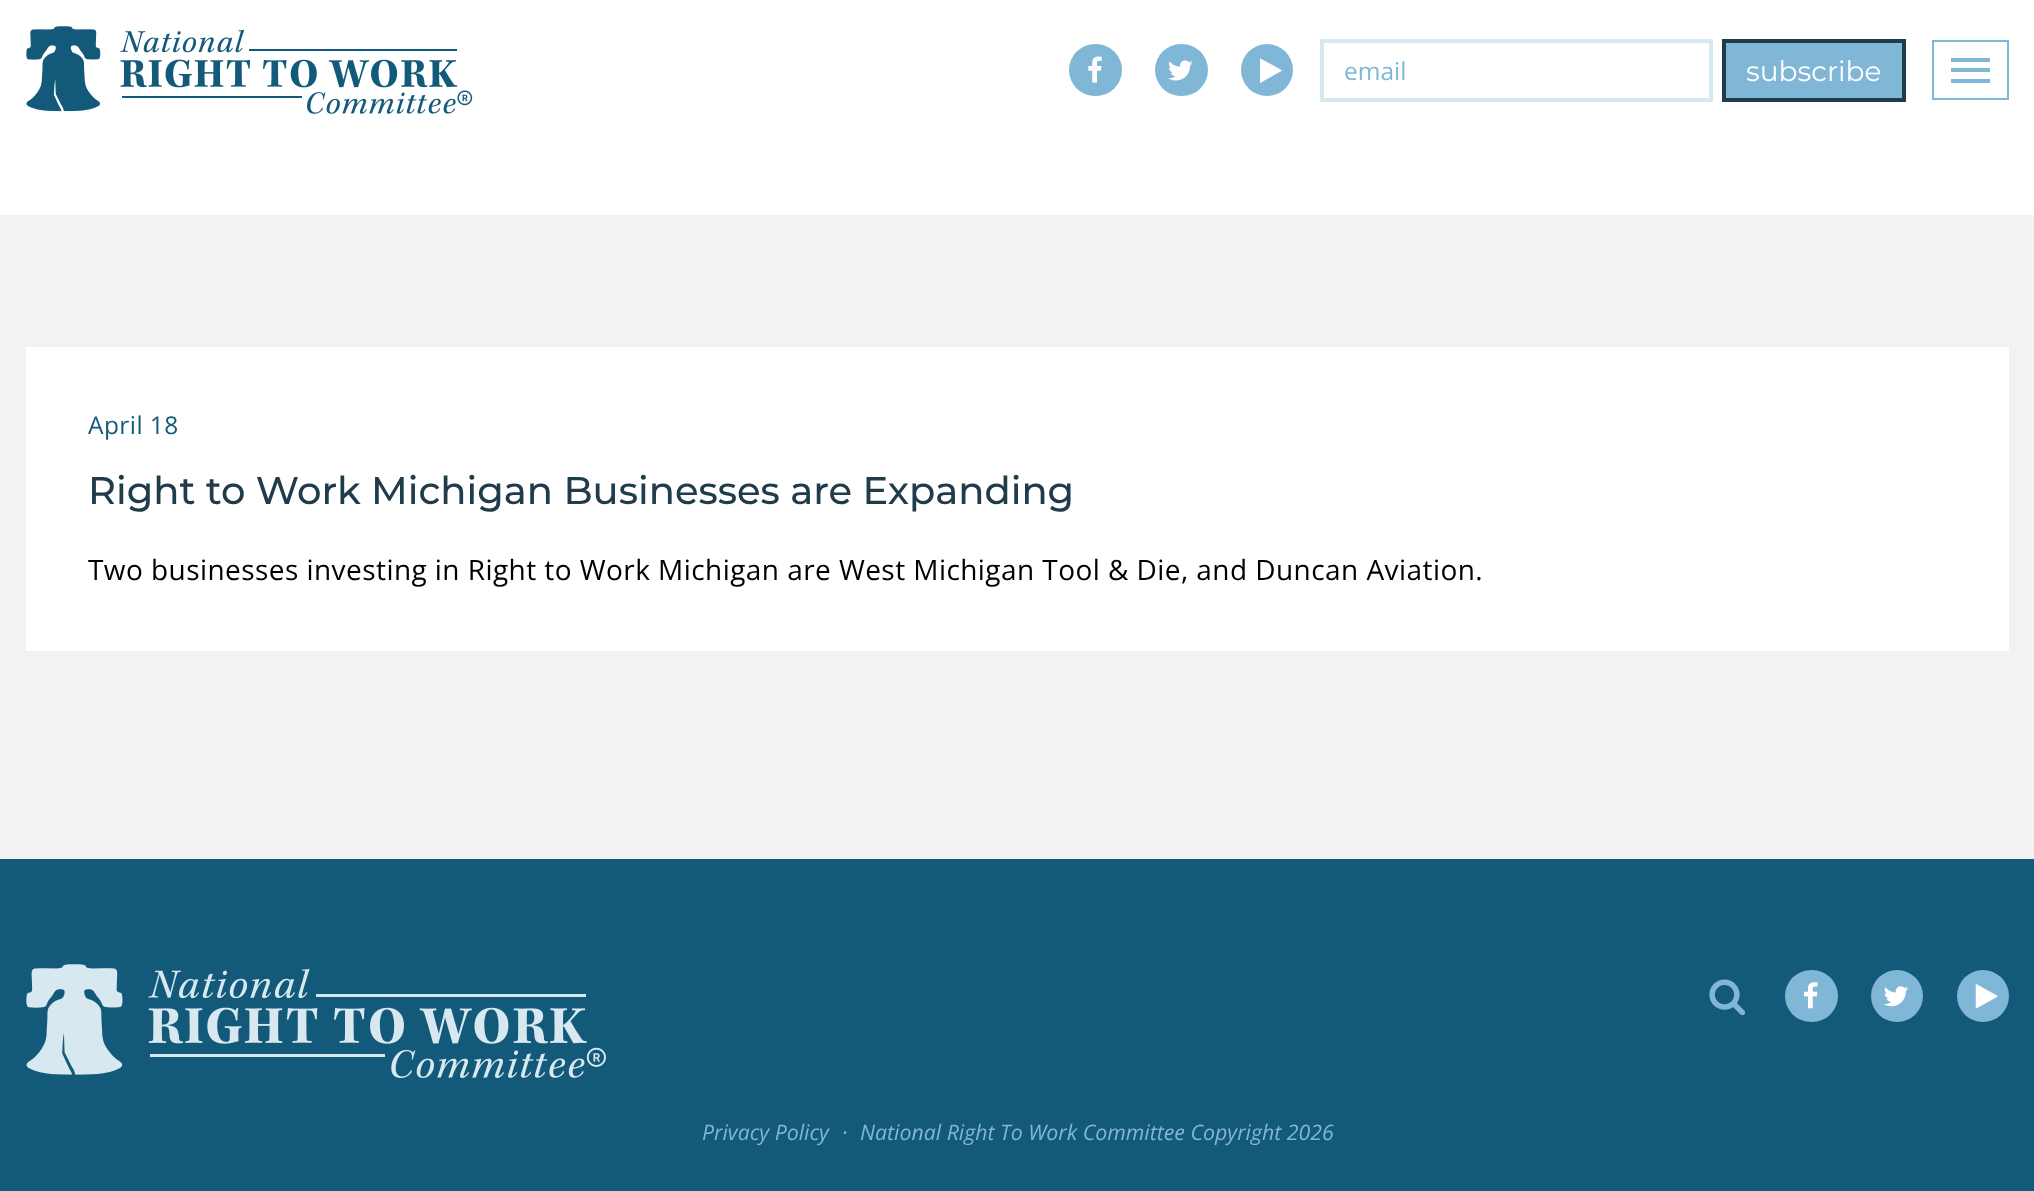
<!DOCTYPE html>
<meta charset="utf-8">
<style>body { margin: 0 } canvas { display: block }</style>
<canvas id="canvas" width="2034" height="1191"></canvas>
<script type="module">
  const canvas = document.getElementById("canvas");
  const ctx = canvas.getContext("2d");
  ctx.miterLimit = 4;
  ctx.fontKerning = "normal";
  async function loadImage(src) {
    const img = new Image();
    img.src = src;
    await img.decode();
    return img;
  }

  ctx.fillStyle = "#ffffff";
  ctx.fillRect(0, 0, 2034, 1191);
  ctx.drawImage(await loadImage("img1.png"), 26, 26, 447, 88);
  ctx.fillStyle = "#80b7d7";
  ctx.beginPath();
  ctx.roundRect(1069, 44, 53, 52, 26);
  ctx.fill();
  ctx.drawImage(await loadImage("img2.png"), 1088, 56, 14, 27);
  ctx.beginPath();
  ctx.roundRect(1155, 44, 53, 52, 26);
  ctx.fill();
  ctx.drawImage(await loadImage("img3.png"), 1168, 60, 25, 21);
  ctx.beginPath();
  ctx.arc(1267, 70, 26, 0, Math.PI * 2);
  ctx.fill();
  ctx.fillStyle = "#ffffff";
  ctx.beginPath();
  ctx.moveTo(1281.5, 71);
  ctx.lineTo(1264.5, 80.5);
  ctx.bezierCurveTo(1264, 81, 1260.5, 83.5, 1260, 82.5);
  ctx.lineTo(1260, 58.5);
  ctx.lineTo(1260.5, 58.5);
  ctx.lineTo(1278, 68);
  ctx.lineTo(1282, 70.5);
  ctx.closePath();
  ctx.fill();
  ctx.strokeStyle = "#d8e8f1";
  ctx.lineWidth = 4;
  ctx.strokeRect(1322, 41, 389, 59);
  ctx.font = "24.5px Open Sans";
  ctx.fillStyle = "#80b7d7";
  ctx.fillText("email", 1344, 80);
  ctx.beginPath();
  ctx.rect(1724, 41, 180, 59);
  ctx.fill();
  ctx.strokeStyle = "#203b49";
  ctx.stroke();
  ctx.font = "28px Montserrat";
  ctx.fillStyle = "#ffffff";
  ctx.fillText("subscribe", 1746, 81);
  ctx.strokeStyle = "#80b7d7";
  ctx.lineWidth = 2;
  ctx.strokeRect(1933, 41, 75, 58);
  ctx.fillStyle = "#80b7d7";
  ctx.fillRect(1951, 58, 39, 4);
  ctx.fillRect(1951, 68, 39, 4);
  ctx.fillRect(1951, 79, 39, 4);
  ctx.fillStyle = "#f2f2f2";
  ctx.fillRect(0, 215, 2034, 644);
  ctx.fillStyle = "#ffffff";
  ctx.fillRect(26, 347, 1983, 304);
  ctx.letterSpacing = "0.44px";
  ctx.font = "24.5px Open Sans";
  ctx.fillStyle = "#135979";
  ctx.fillText("April 18", 88, 434);
  ctx.letterSpacing = "0px";
  ctx.font = "500 38.5px Montserrat";
  ctx.fillStyle = "#203b49";
  ctx.fillText("Right to Work Michigan Businesses are Expanding", 88, 504);
  ctx.letterSpacing = "0.44px";
  ctx.font = "28px Open Sans";
  ctx.fillStyle = "#000000";
  ctx.fillText("Two businesses investing in Right to Work Michigan are West Michigan Tool & Die, and Duncan Aviation.", 88, 580);
  ctx.fillStyle = "#135979";
  ctx.fillRect(0, 859, 2034, 332);
  ctx.drawImage(await loadImage("img4.png"), 26, 964, 580, 114);
  ctx.drawImage(await loadImage("img5.png"), 1709, 979, 37, 37);
  ctx.fillStyle = "#80b7d7";
  ctx.beginPath();
  ctx.roundRect(1785, 970, 53, 52, 26);
  ctx.fill();
  ctx.drawImage(await loadImage("img6.png"), 1804, 982, 14, 27);
  ctx.beginPath();
  ctx.arc(1897, 996, 26, 0, Math.PI * 2);
  ctx.fill();
  ctx.drawImage(await loadImage("img7.png"), 1884, 986, 25, 21);
  ctx.beginPath();
  ctx.arc(1983, 996, 26, 0, Math.PI * 2);
  ctx.fill();
  ctx.drawImage(await loadImage("img8.png"), 1975, 984, 23, 25);
  ctx.letterSpacing = "0px";
  ctx.font = "italic 21.3px Open Sans";
  ctx.fillText("Privacy Policy", 702, 1140);
  ctx.fillText("·", 842, 1140);
  ctx.fillText("National Right To Work Committee Copyright 2026", 860, 1140);
</script>
